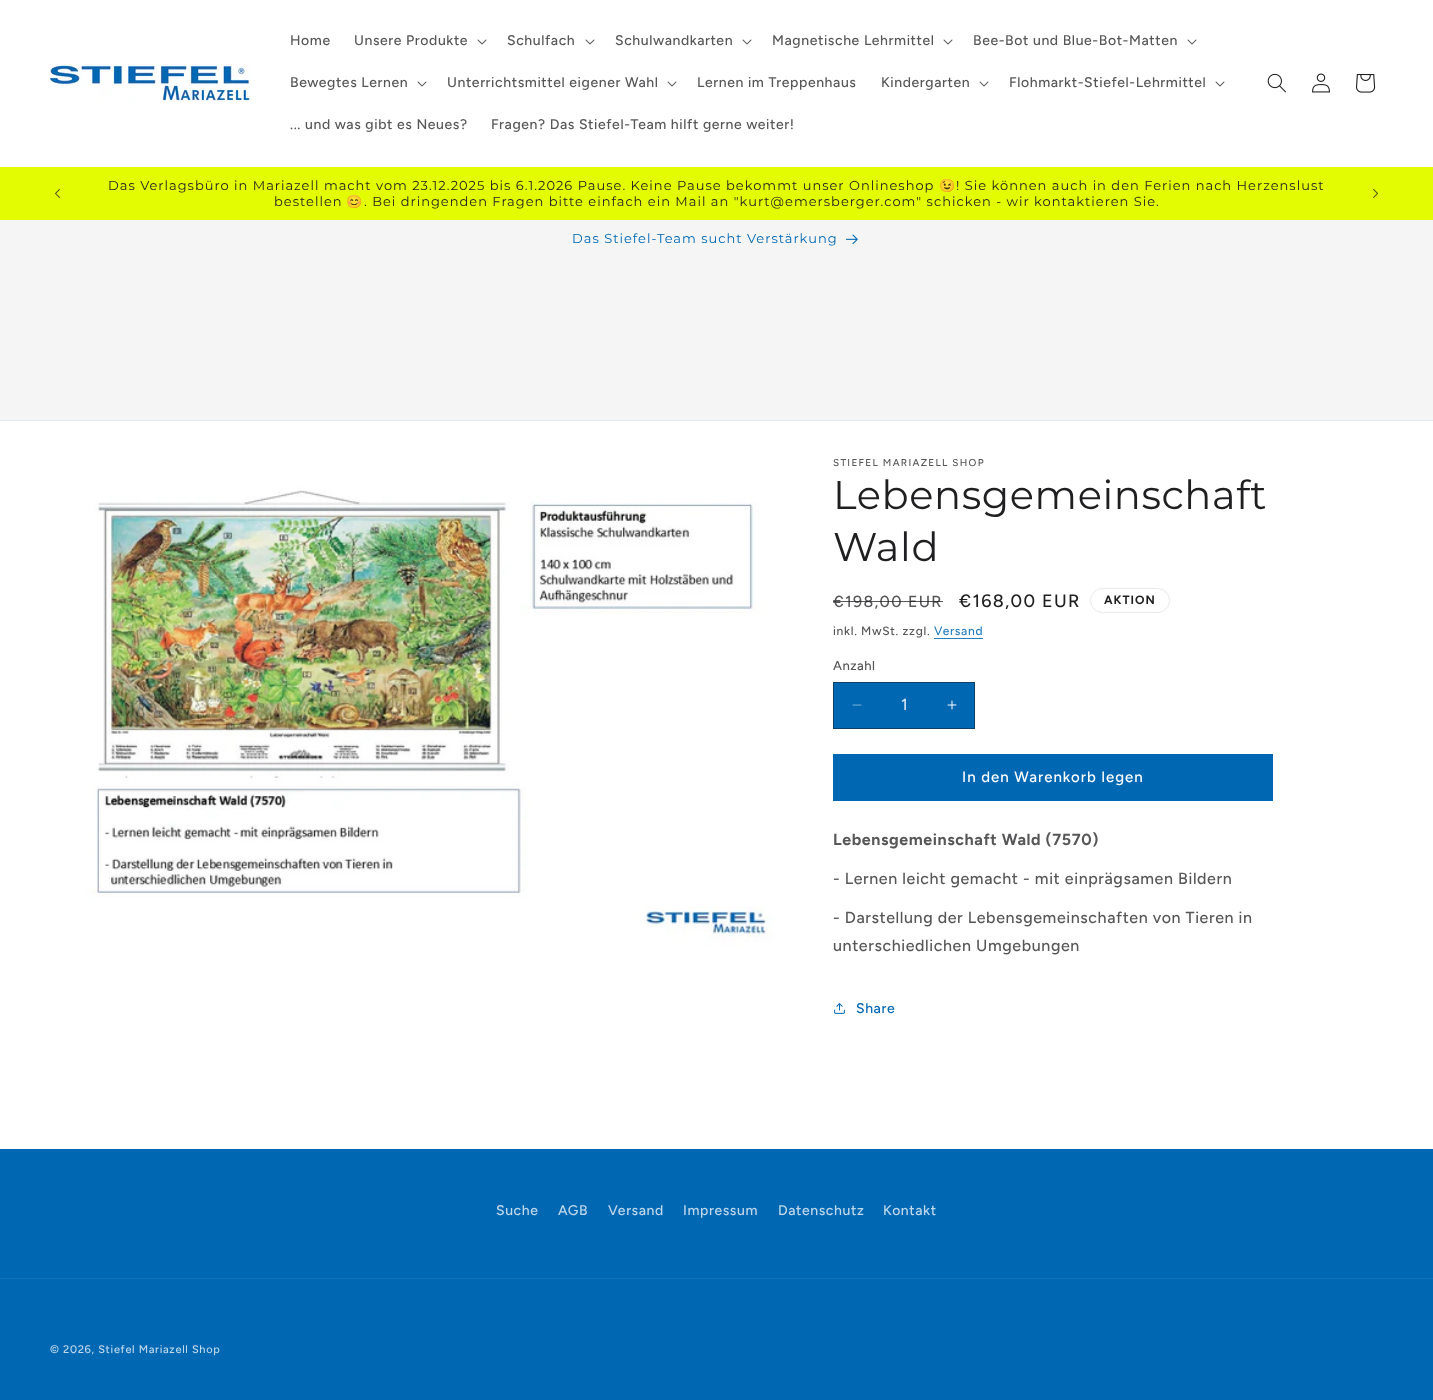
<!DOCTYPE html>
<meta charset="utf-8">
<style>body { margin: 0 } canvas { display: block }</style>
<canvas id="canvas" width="1433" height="1400"></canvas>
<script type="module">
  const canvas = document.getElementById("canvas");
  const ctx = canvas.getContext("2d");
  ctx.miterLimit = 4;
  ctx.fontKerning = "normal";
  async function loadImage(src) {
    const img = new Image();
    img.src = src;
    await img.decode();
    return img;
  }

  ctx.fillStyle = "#ffffff";
  ctx.fillRect(0, 0, 1433, 1400);
  ctx.drawImage(await loadImage("img1.png"), 50, 64, 200, 38);
  ctx.letterSpacing = "0.6px";
  ctx.font = "500 14px Figtree";
  ctx.fillStyle = "#575759";
  ctx.fillText("Home", 290, 45);
  ctx.fillText("Unsere Produkte", 354, 45);
  ctx.drawImage(await loadImage("img2.png"), 477, 39, 10, 6);
  ctx.fillText("Schulfach", 507, 45);
  ctx.drawImage(await loadImage("img2.png"), 585, 39, 10, 6);
  ctx.fillText("Schulwandkarten", 615, 45);
  ctx.drawImage(await loadImage("img2.png"), 742, 39, 10, 6);
  ctx.fillText("Magnetische Lehrmittel", 772, 45);
  ctx.drawImage(await loadImage("img2.png"), 943, 39, 10, 6);
  ctx.fillText("Bee-Bot und Blue-Bot-Matten", 973, 45);
  ctx.drawImage(await loadImage("img2.png"), 1187, 39, 10, 6);
  ctx.fillText("Bewegtes Lernen", 290, 87);
  ctx.drawImage(await loadImage("img2.png"), 417, 81, 10, 6);
  ctx.fillText("Unterrichtsmittel eigener Wahl", 447, 87);
  ctx.drawImage(await loadImage("img2.png"), 667, 81, 10, 6);
  ctx.fillText("Lernen im Treppenhaus", 697, 87);
  ctx.fillText("Kindergarten", 881, 87);
  ctx.drawImage(await loadImage("img2.png"), 979, 81, 10, 6);
  ctx.fillText("Flohmarkt-Stiefel-Lehrmittel", 1009, 87);
  ctx.drawImage(await loadImage("img2.png"), 1215, 81, 10, 6);
  ctx.fillText("... und was gibt es Neues?", 290, 129);
  ctx.fillText("Fragen? Das Stiefel-Team hilft gerne weiter!", 491, 129);
  ctx.drawImage(await loadImage("img3.png"), 1267, 73, 19, 20);
  ctx.drawImage(await loadImage("img4.png"), 1312, 73, 18, 20);
  ctx.drawImage(await loadImage("img5.png"), 1356, 74, 20, 19);
  ctx.fillStyle = "#e3fc02";
  ctx.fillRect(0, 167, 1433, 53);
  ctx.drawImage(await loadImage("img6.png"), 55, 189, 5, 9);
  ctx.letterSpacing = "1px";
  ctx.font = "13px Montserrat";
  ctx.fillStyle = "#1f1f21";
  ctx.fillText("Das Verlagsbüro in Mariazell macht vom 23.12.2025 bis 6.1.2026 Pause. Keine Pause bekommt unser Onlineshop", 108, 190);
  ctx.font = "13px Noto Color Emoji";
  ctx.fillText("😉", 939, 190);
  ctx.font = "13px Montserrat";
  ctx.fillText("! Sie können auch in den Ferien nach Herzenslust", 956, 190);
  ctx.fillText("bestellen", 274, 206);
  ctx.font = "13px Noto Color Emoji";
  ctx.fillText("😊", 346, 206);
  ctx.font = "13px Montserrat";
  ctx.fillText(". Bei dringenden Fragen bitte einfach ein Mail an \"kurt@emersberger.com\" schicken - wir kontaktieren Sie.", 364, 206);
  ctx.drawImage(await loadImage("img7.png"), 1373, 189, 5, 9);
  ctx.fillStyle = "#f5f5f5";
  ctx.fillRect(0, 220, 1433, 200);
  ctx.fillStyle = "#e1eaf0";
  ctx.fillRect(0, 420, 1433, 1);
  ctx.fillStyle = "#0067b3";
  ctx.fillText("Das Stiefel-Team sucht Verstärkung", 572, 243);
  ctx.drawImage(await loadImage("img8.png"), 846, 234, 12, 10);
  ctx.drawImage(await loadImage("img9.png"), 50, 457, 733, 508);
  ctx.letterSpacing = "1.3px";
  ctx.font = "500 10px Figtree";
  ctx.fillStyle = "#575759";
  ctx.fillText("STIEFEL MARIAZELL SHOP", 833, 466);
  ctx.letterSpacing = "0.6px";
  ctx.font = "40px Montserrat";
  ctx.fillStyle = "#1f1f21";
  ctx.fillText("Lebensgemeinschaft", 833, 509);
  ctx.fillText("Wald", 833, 561);
  ctx.letterSpacing = "1.3px";
  ctx.font = "500 16px Figtree";
  ctx.fillStyle = "#575759";
  ctx.fillText("€198,00 EUR", 833, 607);
  ctx.fillStyle = "rgba(31, 31, 33, 0.75)";
  ctx.fillRect(833, 601, 110, 1);
  ctx.font = "500 18px Figtree";
  ctx.fillStyle = "#1f1f21";
  ctx.fillText("€168,00 EUR", 959, 607);
  ctx.beginPath();
  ctx.roundRect(1090.5, 588.5, 79, 24, 12);
  ctx.strokeStyle = "#e9e9e9";
  ctx.stroke();
  ctx.letterSpacing = "1px";
  ctx.font = "bold 12px Figtree";
  ctx.fillText("AKTION", 1104, 604);
  ctx.letterSpacing = "0.7px";
  ctx.font = "500 12px Figtree";
  ctx.fillStyle = "#575759";
  ctx.fillText("inkl. MwSt. zzgl.", 833, 635);
  ctx.fillStyle = "#267ebe";
  ctx.fillText("Versand", 934, 635);
  ctx.fillRect(934, 638, 49, 1);
  ctx.letterSpacing = "0.5px";
  ctx.font = "500 13px Figtree";
  ctx.fillStyle = "#575759";
  ctx.fillText("Anzahl", 833, 670);
  ctx.fillStyle = "#0067b3";
  ctx.fillRect(834, 683, 140, 45);
  ctx.drawImage(await loadImage("img10.png"), 852, 704, 10, 2);
  ctx.drawImage(await loadImage("img11.png"), 947, 700, 10, 10);
  ctx.strokeStyle = "#113f63";
  ctx.strokeRect(833.5, 682.5, 141, 46);
  ctx.letterSpacing = "0px";
  ctx.font = "500 16px Figtree";
  ctx.fillStyle = "#d9e8f4";
  ctx.fillText("1", 901, 710);
  ctx.fillStyle = "#0067b3";
  ctx.fillRect(833, 754, 440, 47);
  ctx.letterSpacing = "1px";
  ctx.font = "500 15px Figtree";
  ctx.fillStyle = "#ffffff";
  ctx.fillText("In den Warenkorb legen", 962, 782);
  ctx.letterSpacing = "0.6px";
  ctx.font = "bold 16px Figtree";
  ctx.fillStyle = "#575759";
  ctx.fillText("Lebensgemeinschaft Wald (7570)", 833, 845);
  ctx.font = "500 16px Figtree";
  ctx.fillText("- Lernen leicht gemacht - mit einprägsamen Bildern", 833, 884);
  ctx.fillText("- Darstellung der Lebensgemeinschaften von Tieren in", 833, 923);
  ctx.fillText("unterschiedlichen Umgebungen", 833, 951);
  ctx.drawImage(await loadImage("img12.png"), 834, 1003, 11, 11);
  ctx.font = "500 14px Figtree";
  ctx.fillStyle = "#0067b3";
  ctx.fillText("Share", 856, 1013);
  ctx.fillRect(0, 1149, 1433, 251);
  ctx.fillStyle = "#bfd9ec";
  ctx.fillText("Suche", 496, 1215);
  ctx.fillText("AGB", 558, 1215);
  ctx.fillText("Versand", 608, 1215);
  ctx.fillText("Impressum", 683, 1215);
  ctx.fillText("Datenschutz", 778, 1215);
  ctx.fillText("Kontakt", 883, 1215);
  ctx.fillStyle = "#1473b9";
  ctx.fillRect(0, 1278, 1433, 1);
  ctx.letterSpacing = "0.7px";
  ctx.font = "500 11px Figtree";
  ctx.fillStyle = "#bfd9ec";
  ctx.fillText("© 2026, Stiefel Mariazell Shop", 50, 1353);
</script>
